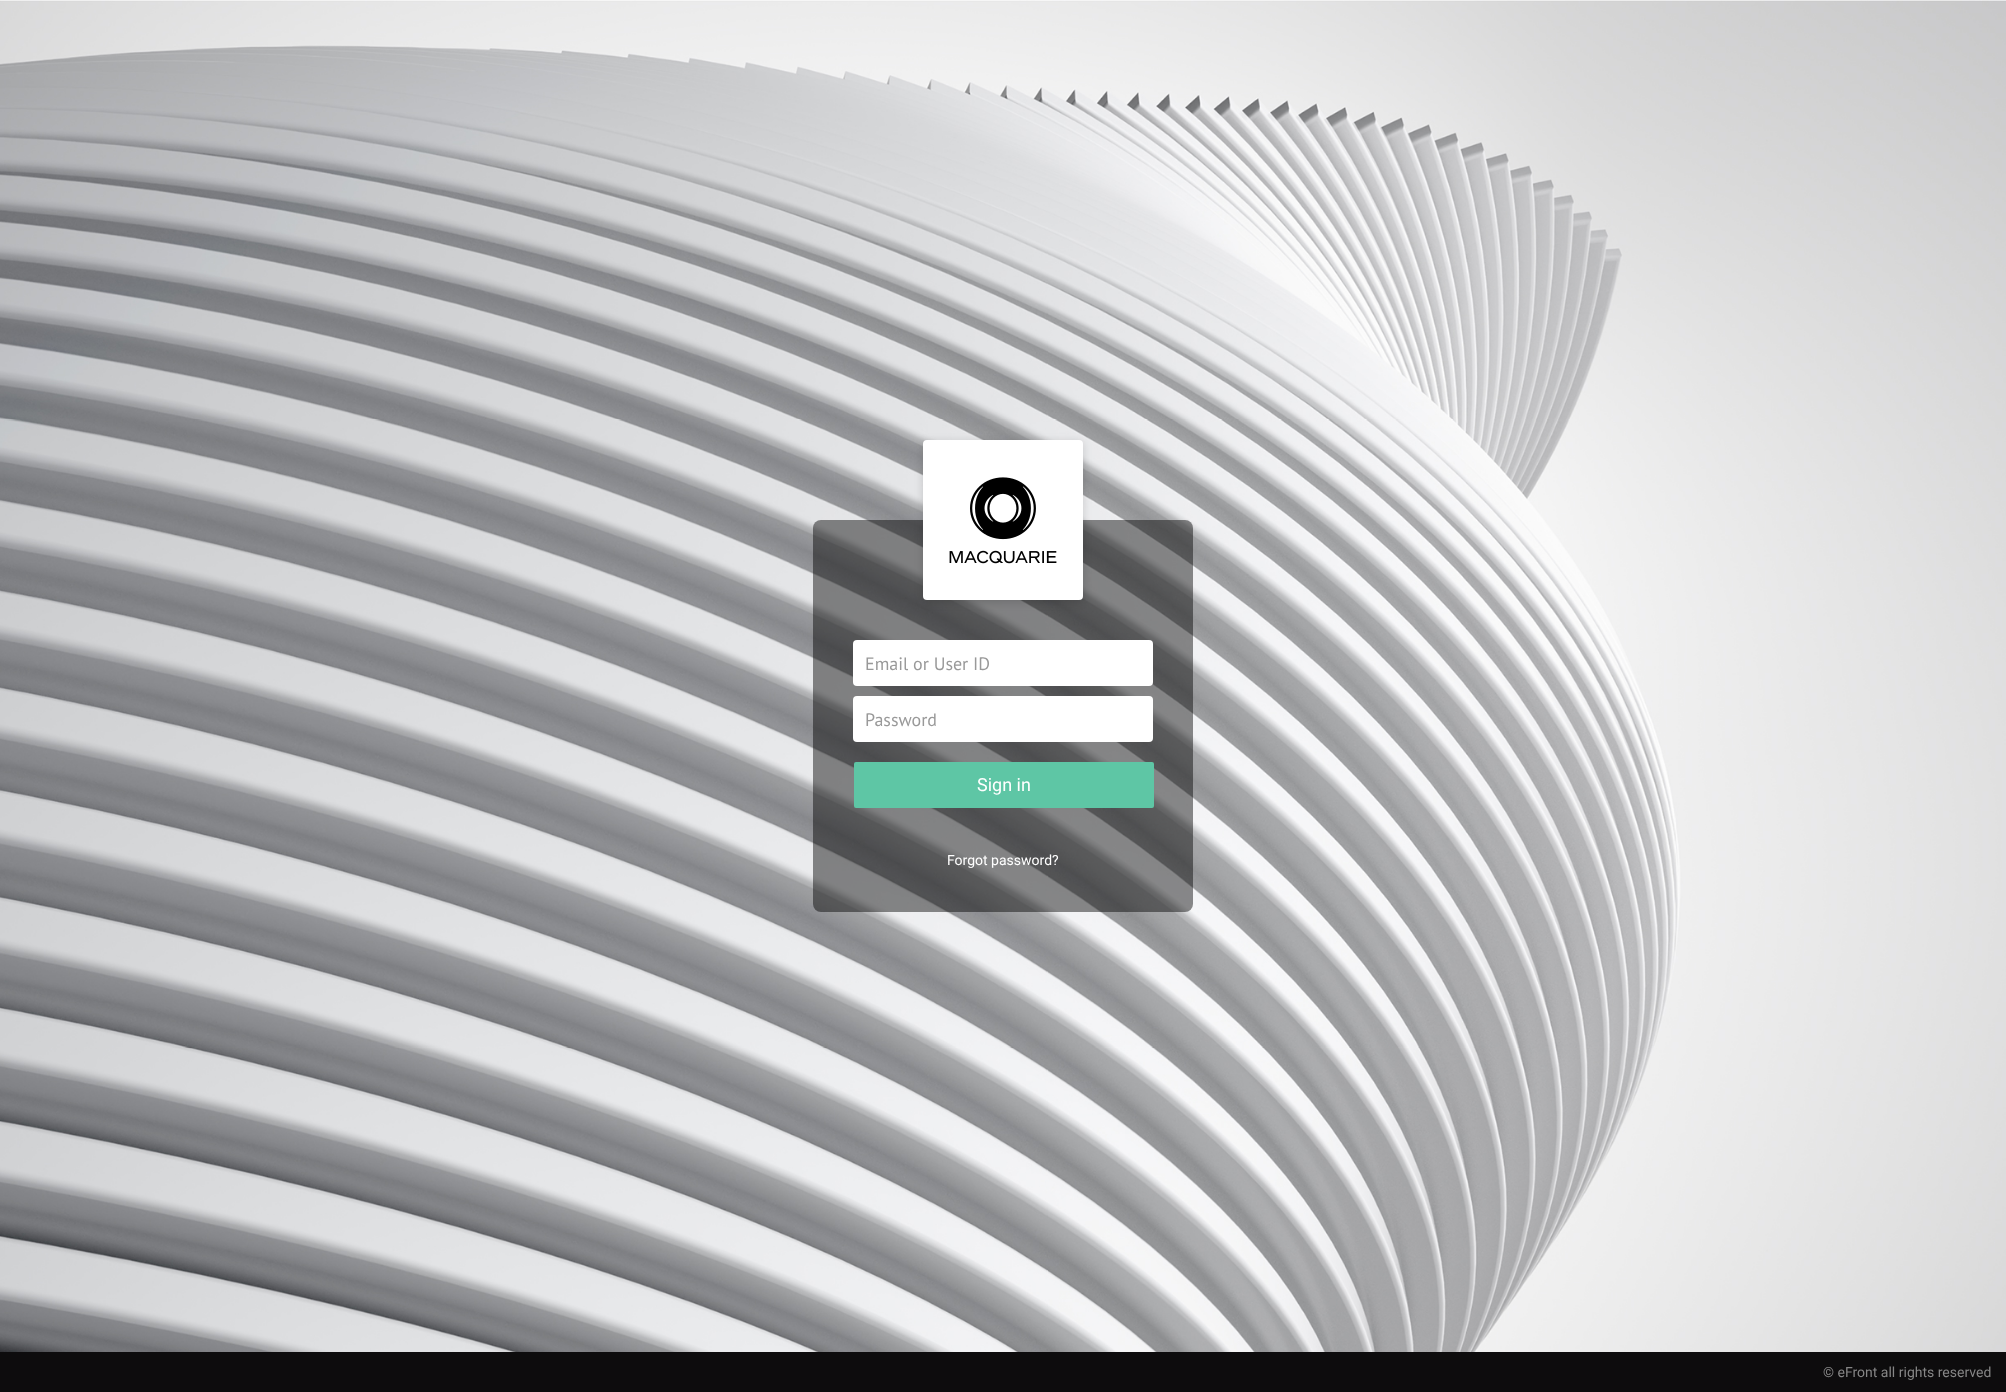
<!DOCTYPE html>
<meta charset="utf-8">
<style>body { margin: 0 } canvas { display: block }</style>
<canvas id="canvas" width="2006" height="1392"></canvas>
<script type="module">
  const canvas = document.getElementById("canvas");
  const ctx = canvas.getContext("2d");
  ctx.miterLimit = 4;
  ctx.fontKerning = "normal";
  async function loadImage(src) {
    const img = new Image();
    img.src = src;
    await img.decode();
    return img;
  }

  ctx.fillStyle = "#ffffff";
  ctx.fillRect(0, 0, 2006, 1392);
  ctx.drawImage(await loadImage("img1.png"), 0, 0, 2006, 1352);
  ctx.fillStyle = "rgba(0, 0, 0, 0.45)";
  ctx.beginPath();
  ctx.roundRect(813, 520, 380, 392, 8);
  ctx.fill();
  ctx.fillStyle = "rgba(0, 0, 0, 0.15)";
  ctx.filter = "blur(4px)";
  ctx.beginPath();
  ctx.roundRect(923, 442, 160, 160, 4);
  ctx.fill();
  ctx.filter = "none";
  ctx.fillStyle = "#ffffff";
  ctx.beginPath();
  ctx.roundRect(923, 440, 160, 160, 4);
  ctx.fill();
  ctx.drawImage(await loadImage("img2.png"), 949, 477, 108, 87);
  ctx.beginPath();
  ctx.roundRect(853, 640, 300, 46, 4);
  ctx.fill();
  ctx.font = "18px PT Sans";
  ctx.fillStyle = "#999999";
  ctx.fillText("Email or User ID", 865, 670);
  ctx.fillStyle = "#ffffff";
  ctx.beginPath();
  ctx.roundRect(853, 696, 300, 46, 4);
  ctx.fill();
  ctx.fillStyle = "#999999";
  ctx.fillText("Password", 865, 726);
  ctx.fillStyle = "#5ec6a5";
  ctx.beginPath();
  ctx.roundRect(854, 762, 300, 46, 2);
  ctx.fill();
  ctx.font = "18px Roboto";
  ctx.fillStyle = "#ffffff";
  ctx.fillText("Sign in", 977, 791);
  ctx.font = "14px Roboto";
  ctx.fillText("Forgot password?", 947, 865);
  ctx.fillStyle = "#0d0c0d";
  ctx.fillRect(0, 1352, 2006, 40);
  ctx.fillStyle = "#868686";
  ctx.fillText("© eFront all rights reserved", 1823, 1377);
</script>
